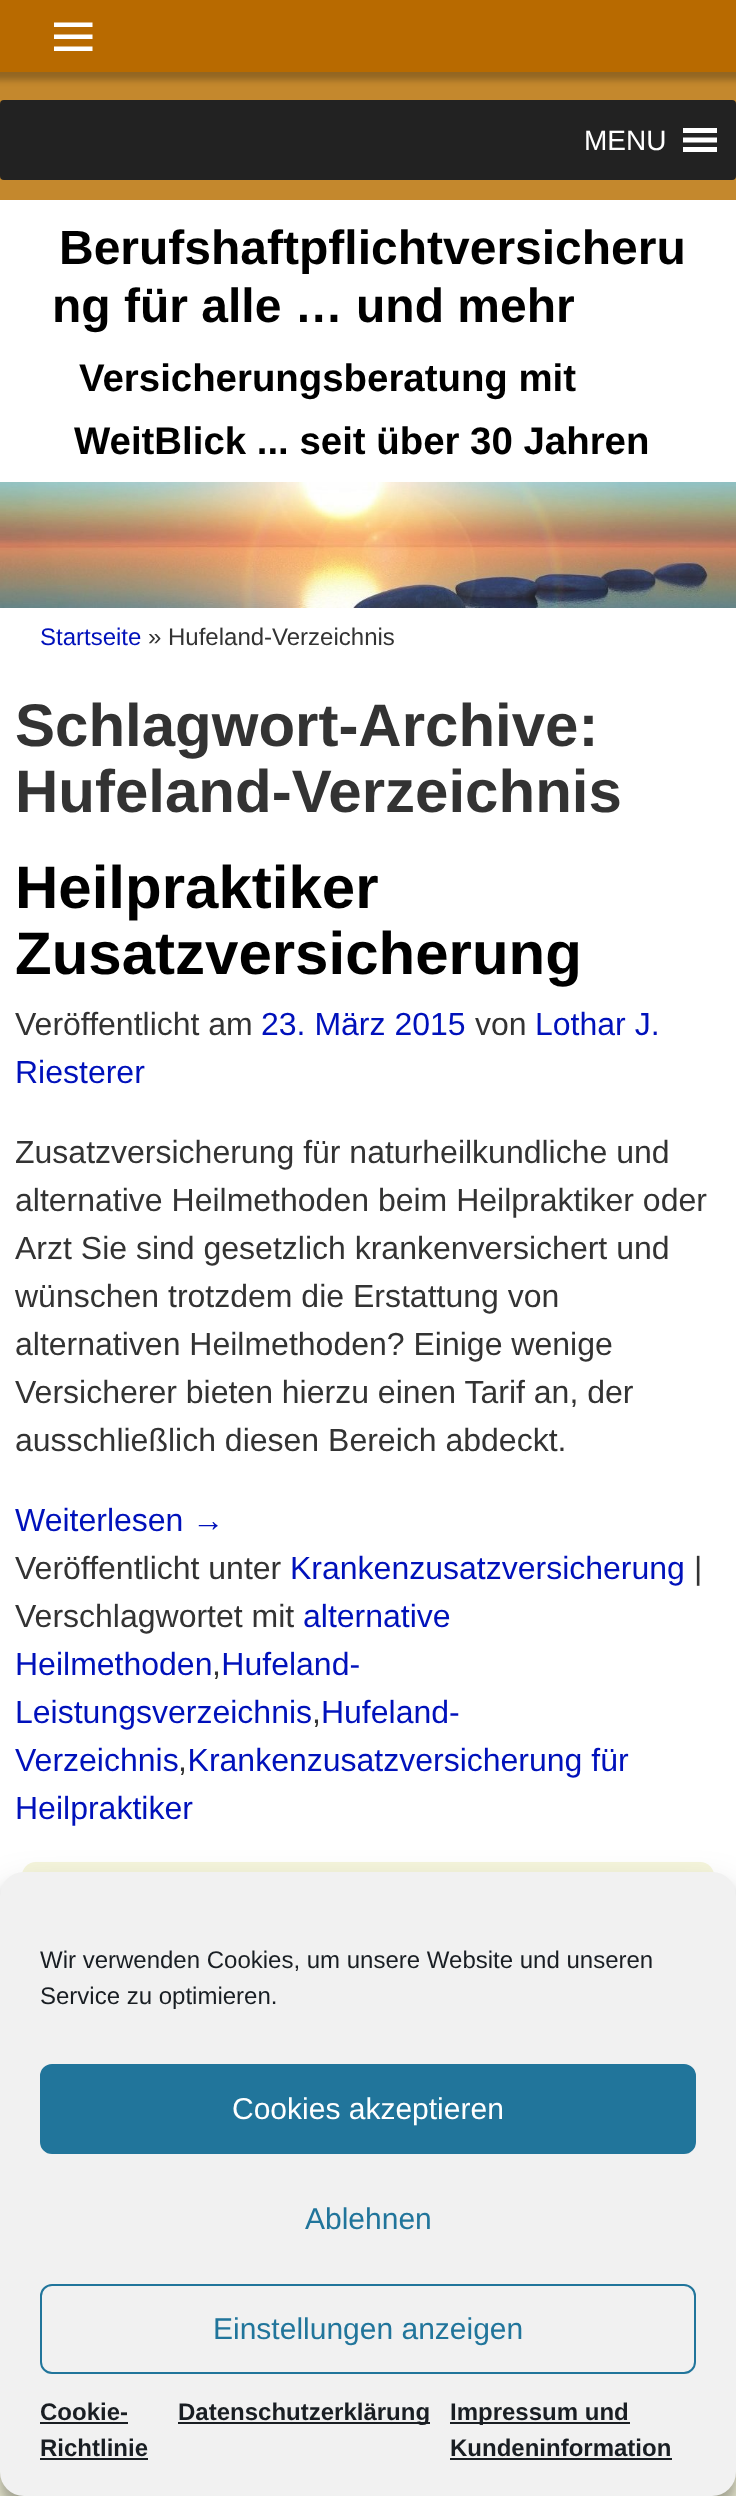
<!DOCTYPE html>
<meta charset="utf-8">
<style>body { margin: 0 } canvas { display: block }</style>
<canvas id="canvas" width="736" height="2496"></canvas>
<script type="module">
  const canvas = document.getElementById("canvas");
  const ctx = canvas.getContext("2d");
  ctx.miterLimit = 4;
  ctx.fontKerning = "normal";
  async function loadImage(src) {
    const img = new Image();
    img.src = src;
    await img.decode();
    return img;
  }

  ctx.fillStyle = "#c4882d";
  ctx.fillRect(0, 0, 736, 2496);
  ctx.fillStyle = "#ffffff";
  ctx.fillRect(0, 200, 736, 1696);
  ctx.fillStyle = "rgba(0, 0, 0, 0.25)";
  ctx.filter = "blur(3px)";
  ctx.beginPath();
  ctx.rect(-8, -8, 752, 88);
  ctx.fill();
  ctx.filter = "none";
  ctx.fillStyle = "#b86a00";
  ctx.fillRect(0, 0, 736, 72);
  ctx.fillStyle = "#ffffff";
  ctx.beginPath();
  ctx.moveTo(54, 51);
  ctx.lineTo(54, 46.5);
  ctx.lineTo(92.5, 46.5);
  ctx.lineTo(92.5, 51);
  ctx.closePath();
  ctx.moveTo(54, 22.5);
  ctx.lineTo(92.5, 22.5);
  ctx.lineTo(92.5, 27);
  ctx.lineTo(54, 27);
  ctx.closePath();
  ctx.moveTo(54, 39);
  ctx.lineTo(54, 34.5);
  ctx.lineTo(92.5, 34.5);
  ctx.lineTo(92.5, 39);
  ctx.closePath();
  ctx.fill();
  ctx.fillStyle = "#222222";
  ctx.beginPath();
  ctx.roundRect(0, 100, 736, 80, 4);
  ctx.fill();
  ctx.font = "28px Liberation Sans";
  ctx.fillStyle = "#ffffff";
  ctx.fillText("MENU", 584, 150);
  ctx.beginPath();
  ctx.moveTo(683, 152);
  ctx.lineTo(717, 152);
  ctx.lineTo(717, 147);
  ctx.lineTo(683, 147);
  ctx.closePath();
  ctx.moveTo(683, 128);
  ctx.lineTo(683, 133);
  ctx.lineTo(717, 133);
  ctx.lineTo(717, 128);
  ctx.closePath();
  ctx.moveTo(683, 142.5);
  ctx.lineTo(717, 142.5);
  ctx.lineTo(717, 137.5);
  ctx.lineTo(683, 137.5);
  ctx.closePath();
  ctx.fill();
  ctx.font = "bold 48px Liberation Sans";
  ctx.fillStyle = "#000000";
  ctx.fillText("Berufshaftpflichtversicheru", 59, 264);
  ctx.fillText("ng für alle … und mehr", 52, 322);
  ctx.font = "bold 38.4px Liberation Sans";
  ctx.fillText("Versicherungsberatung mit", 79, 391);
  ctx.fillText("WeitBlick ... seit über 30 Jahren", 74, 454);
  ctx.drawImage(await loadImage("img1.png"), 0, 482, 736, 126);
  ctx.font = "24px Liberation Sans";
  ctx.fillStyle = "#0011bb";
  ctx.fillText("Startseite", 40, 645);
  ctx.fillStyle = "#333333";
  ctx.fillText("» Hufeland-Verzeichnis", 148, 645);
  ctx.font = "bold 60px Liberation Sans";
  ctx.fillText("Schlagwort-Archive:", 15, 746);
  ctx.fillText("Hufeland-Verzeichnis", 15, 812);
  ctx.fillStyle = "#000000";
  ctx.fillText("Heilpraktiker", 15, 908);
  ctx.fillText("Zusatzversicherung", 15, 974);
  ctx.font = "32px Liberation Sans";
  ctx.fillStyle = "#333333";
  ctx.fillText("Veröffentlicht am", 15, 1035);
  ctx.fillStyle = "#0011bb";
  ctx.fillText("23. März 2015", 261, 1035);
  ctx.fillStyle = "#333333";
  ctx.fillText("von", 475, 1035);
  ctx.fillStyle = "#0011bb";
  ctx.fillText("Lothar J.", 535, 1035);
  ctx.fillText("Riesterer", 15, 1083);
  ctx.fillStyle = "#333333";
  ctx.fillText("Zusatzversicherung für naturheilkundliche und", 15, 1163);
  ctx.fillText("alternative Heilmethoden beim Heilpraktiker oder", 15, 1211);
  ctx.fillText("Arzt Sie sind gesetzlich krankenversichert und", 15, 1259);
  ctx.fillText("wünschen trotzdem die Erstattung von", 15, 1307);
  ctx.fillText("alternativen Heilmethoden? Einige wenige", 15, 1355);
  ctx.fillText("Versicherer bieten hierzu einen Tarif an, der", 15, 1403);
  ctx.fillText("ausschließlich diesen Bereich abdeckt.", 15, 1451);
  ctx.fillStyle = "#0011bb";
  ctx.fillText("Weiterlesen →", 15, 1531);
  ctx.fillStyle = "#333333";
  ctx.fillText("Veröffentlicht unter", 15, 1579);
  ctx.fillStyle = "#0011bb";
  ctx.fillText("Krankenzusatzversicherung", 290, 1579);
  ctx.fillStyle = "#333333";
  ctx.fillText("|", 694, 1579);
  ctx.fillText("Verschlagwortet mit", 15, 1627);
  ctx.fillStyle = "#0011bb";
  ctx.fillText("alternative", 303, 1627);
  ctx.fillText("Heilmethoden Hufeland-", 15, 1675);
  ctx.fillStyle = "#333333";
  ctx.fillText(",", 212, 1675);
  ctx.fillStyle = "#0011bb";
  ctx.fillText("Leistungsverzeichnis Hufeland-", 15, 1723);
  ctx.fillStyle = "#333333";
  ctx.fillText(",", 312, 1723);
  ctx.fillStyle = "#0011bb";
  ctx.fillText("Verzeichnis Krankenzusatzversicherung für", 15, 1771);
  ctx.fillStyle = "#333333";
  ctx.fillText(",", 178, 1771);
  ctx.fillStyle = "#0011bb";
  ctx.fillText("Heilpraktiker", 15, 1819);
  ctx.fillStyle = "#f5f5dc";
  ctx.beginPath();
  ctx.roundRect(22, 1862, 692, 466, 14);
  ctx.fill();
  ctx.fillRect(0, 2472, 736, 24);
  ctx.fillStyle = "rgba(0, 0, 0, 0.23)";
  ctx.filter = "blur(6px)";
  ctx.beginPath();
  ctx.roundRect(0, 1884, 736, 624, 24);
  ctx.fill();
  ctx.filter = "none";
  ctx.fillStyle = "rgba(0, 0, 0, 0.19)";
  ctx.filter = "blur(20px)";
  ctx.beginPath();
  ctx.roundRect(0, 1892, 736, 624, 24);
  ctx.fill();
  ctx.filter = "none";
  ctx.fillStyle = "#f1f1f1";
  ctx.beginPath();
  ctx.roundRect(0, 1872, 736, 624, 24);
  ctx.fill();
  ctx.font = "24px Liberation Sans";
  ctx.fillStyle = "#191e23";
  ctx.fillText("Wir verwenden Cookies, um unsere Website und unseren", 40, 1968);
  ctx.fillText("Service zu optimieren.", 40, 2004);
  ctx.fillStyle = "#21759b";
  ctx.beginPath();
  ctx.roundRect(41, 2065, 654, 88, 11);
  ctx.fill();
  ctx.strokeStyle = "#21759b";
  ctx.lineWidth = 2;
  ctx.stroke();
  ctx.font = "30px Liberation Sans";
  ctx.fillStyle = "#ffffff";
  ctx.fillText("Cookies akzeptieren", 232, 2119);
  ctx.fillStyle = "#21759b";
  ctx.fillText("Ablehnen", 305, 2229);
  ctx.beginPath();
  ctx.roundRect(41, 2285, 654, 88, 11);
  ctx.stroke();
  ctx.fillText("Einstellungen anzeigen", 213, 2339);
  ctx.font = "bold 24px Liberation Sans";
  ctx.fillStyle = "#191e23";
  ctx.fillText("Cookie-", 40, 2420);
  ctx.fillRect(40, 2422, 88, 2);
  ctx.fillText("Richtlinie", 40, 2456);
  ctx.fillRect(40, 2458, 108, 2);
  ctx.fillRect(178, 2422, 252, 2);
  ctx.fillText("Datenschutzerklärung", 178, 2420);
  ctx.fillRect(450, 2422, 180, 2);
  ctx.fillText("Impressum und", 450, 2420);
  ctx.fillText("Kundeninformation", 450, 2456);
  ctx.fillRect(450, 2458, 222, 2);
</script>
